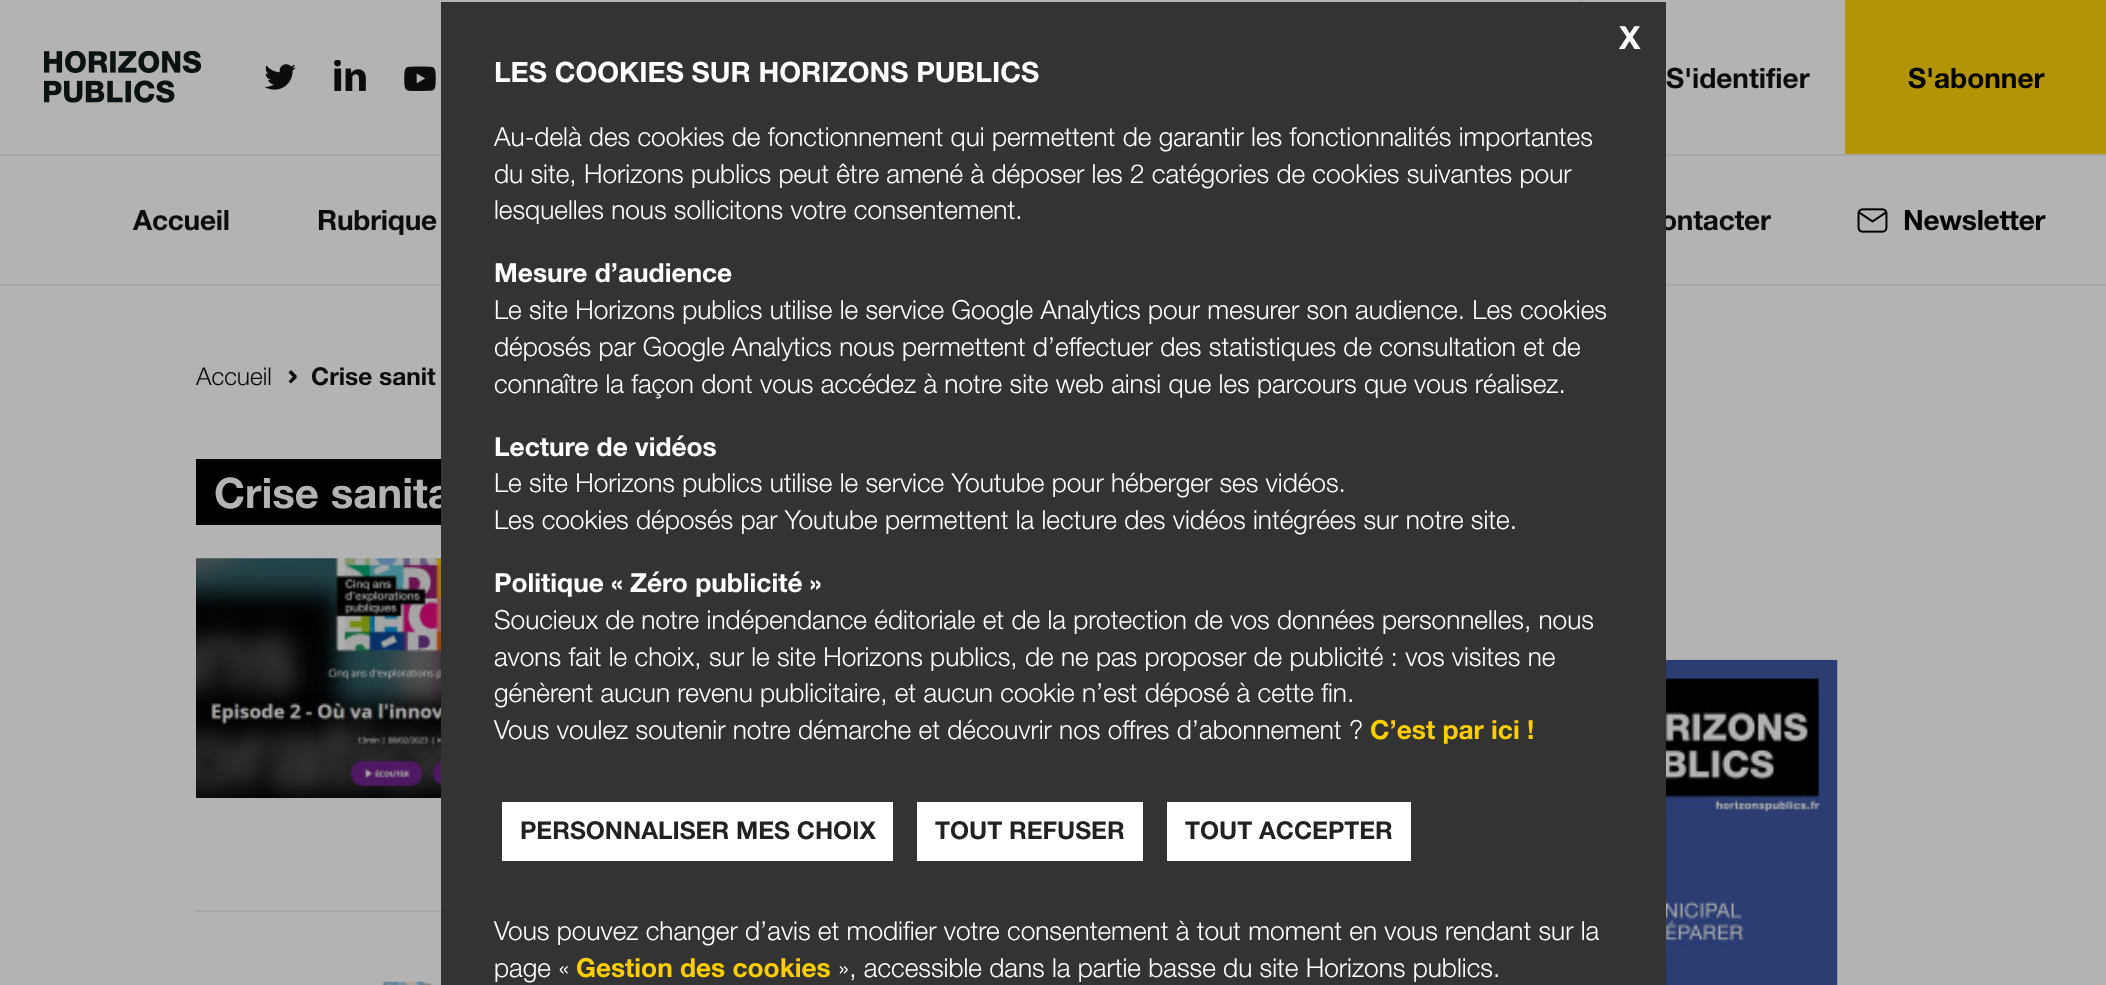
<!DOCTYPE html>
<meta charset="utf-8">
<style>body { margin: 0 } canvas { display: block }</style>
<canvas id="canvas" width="2106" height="985"></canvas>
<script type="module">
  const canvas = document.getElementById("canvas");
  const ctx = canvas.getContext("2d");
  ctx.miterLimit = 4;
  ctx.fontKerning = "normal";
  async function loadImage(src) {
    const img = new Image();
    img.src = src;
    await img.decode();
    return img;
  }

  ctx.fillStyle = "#b3b3b3";
  ctx.fillRect(0, 0, 2106, 985);
  ctx.fillStyle = "#a7a7a7";
  ctx.fillRect(0, 154, 2106, 2);
  ctx.letterSpacing = "-0.25px";
  ctx.font = "bold 28px Helvetica Neue";
  ctx.fillStyle = "#0c0c0c";
  ctx.fillText("ontacter", 1660, 230);
  ctx.fillStyle = "#a7a7a7";
  ctx.fillRect(0, 284, 2106, 2);
  ctx.fillStyle = "#000000";
  ctx.fillRect(196, 459, 245, 66);
  ctx.letterSpacing = "0px";
  ctx.font = "bold 42px Helvetica Neue";
  ctx.fillStyle = "#b3b3b3";
  ctx.fillText("Crise sanita", 214, 508);
  ctx.fillStyle = "#333333";
  ctx.fillRect(441, 2, 1225, 983);
  ctx.font = "bold 32px Helvetica Neue";
  ctx.fillStyle = "#ffffff";
  ctx.fillText("X", 1619, 49);
  ctx.font = "bold 28px Helvetica Neue";
  ctx.fillText("LES COOKIES SUR HORIZONS PUBLICS", 494, 82);
  ctx.font = "300 26.25px Helvetica Neue";
  ctx.fillText("Au-delà des cookies de fonctionnement qui permettent de garantir les fonctionnalités importantes", 494, 146);
  ctx.fillText("du site, Horizons publics peut être amené à déposer les 2 catégories de cookies suivantes pour", 494, 183);
  ctx.fillText("lesquelles nous sollicitons votre consentement.", 494, 219);
  ctx.font = "bold 26.25px Helvetica Neue";
  ctx.fillText("Mesure d’audience", 494, 282);
  ctx.font = "300 26.25px Helvetica Neue";
  ctx.fillText("Le site Horizons publics utilise le service Google Analytics pour mesurer son audience. Les cookies", 494, 319);
  ctx.fillText("déposés par Google Analytics nous permettent d’effectuer des statistiques de consultation et de", 494, 356);
  ctx.fillText("connaître la façon dont vous accédez à notre site web ainsi que les parcours que vous réalisez.", 494, 393);
  ctx.font = "bold 26.25px Helvetica Neue";
  ctx.fillText("Lecture de vidéos", 494, 456);
  ctx.font = "300 26.25px Helvetica Neue";
  ctx.fillText("Le site Horizons publics utilise le service Youtube pour héberger ses vidéos.", 494, 492);
  ctx.fillText("Les cookies déposés par Youtube permettent la lecture des vidéos intégrées sur notre site.", 494, 529);
  ctx.font = "bold 26.25px Helvetica Neue";
  ctx.fillText("Politique « Zéro publicité »", 494, 592);
  ctx.font = "300 26.25px Helvetica Neue";
  ctx.fillText("Soucieux de notre indépendance éditoriale et de la protection de vos données personnelles, nous", 494, 629);
  ctx.fillText("avons fait le choix, sur le site Horizons publics, de ne pas proposer de publicité : vos visites ne", 494, 666);
  ctx.fillText("génèrent aucun revenu publicitaire, et aucun cookie n’est déposé à cette fin.", 494, 702);
  ctx.fillText("Vous voulez soutenir notre démarche et découvrir nos offres d’abonnement ?", 494, 739);
  ctx.font = "bold 26.25px Helvetica Neue";
  ctx.fillStyle = "#ffce00";
  ctx.fillText("C’est par ici !", 1370, 739);
  ctx.fillStyle = "#ffffff";
  ctx.fillRect(502, 802, 391, 59);
  ctx.font = "bold 24.5px Helvetica Neue";
  ctx.fillStyle = "#222222";
  ctx.fillText("PERSONNALISER MES CHOIX", 520, 839);
  ctx.fillStyle = "#ffffff";
  ctx.fillRect(917, 802, 226, 59);
  ctx.fillStyle = "#222222";
  ctx.fillText("TOUT REFUSER", 935, 839);
  ctx.fillStyle = "#ffffff";
  ctx.fillRect(1167, 802, 244, 59);
  ctx.fillStyle = "#222222";
  ctx.fillText("TOUT ACCEPTER", 1185, 839);
  ctx.font = "300 26.25px Helvetica Neue";
  ctx.fillStyle = "#ffffff";
  ctx.fillText("Vous pouvez changer d’avis et modifier votre consentement à tout moment en vous rendant sur la", 494, 940);
  ctx.fillText("page «", 494, 977);
  ctx.font = "bold 26.25px Helvetica Neue";
  ctx.fillStyle = "#ffce00";
  ctx.fillText("Gestion des cookies", 576, 977);
  ctx.font = "300 26.25px Helvetica Neue";
  ctx.fillStyle = "#ffffff";
  ctx.fillText("», accessible dans la partie basse du site Horizons publics.", 838, 977);
  ctx.drawImage(await loadImage("img1.png"), 44, 51, 157, 52);
  ctx.drawImage(await loadImage("img2.png"), 264, 64, 32, 26);
  ctx.drawImage(await loadImage("img3.png"), 334, 60, 32, 31);
  ctx.drawImage(await loadImage("img4.png"), 404, 66, 32, 25);
  ctx.fillStyle = "#a7a7a7";
  ctx.fillRect(1580, 0, 2, 2);
  ctx.font = "bold 28px Helvetica Neue";
  ctx.fillStyle = "#0c0c0c";
  ctx.fillText("S'identifier", 1666, 88);
  ctx.fillStyle = "#b39404";
  ctx.fillRect(1845, 0, 261, 154);
  ctx.fillStyle = "#000000";
  ctx.fillText("S'abonner", 1908, 88);
  ctx.letterSpacing = "-0.25px";
  ctx.fillStyle = "#0c0c0c";
  ctx.fillText("Accueil", 133, 230);
  ctx.fillText("Rubrique", 317, 230);
  ctx.drawImage(await loadImage("img5.png"), 1857, 208, 31, 25);
  ctx.fillStyle = "#000000";
  ctx.fillText("Newsletter", 1903, 230);
  ctx.letterSpacing = "0px";
  ctx.font = "300 24.5px Helvetica Neue";
  ctx.fillStyle = "#0c0c0c";
  ctx.fillText("Accueil", 196, 385);
  ctx.beginPath();
  ctx.moveTo(291, 370);
  ctx.lineTo(297, 376);
  ctx.lineTo(294.5, 378.5);
  ctx.lineTo(288.5, 372.5);
  ctx.closePath();
  ctx.fill();
  ctx.font = "bold 24.5px Helvetica Neue";
  ctx.fillText("Crise sanit", 311, 385);
  ctx.beginPath();
  ctx.moveTo(288.5, 381.5);
  ctx.lineTo(294.5, 375);
  ctx.lineTo(297, 377.5);
  ctx.lineTo(291, 383.5);
  ctx.closePath();
  ctx.fill();
  ctx.fillStyle = "#a7a7a7";
  ctx.fillRect(196, 910, 245, 2);
  ctx.drawImage(await loadImage("img6.png"), 196, 558, 245, 240);
  ctx.drawImage(await loadImage("img7.png"), 382, 981, 51, 4);
  ctx.drawImage(await loadImage("img8.png"), 1666, 659, 172, 326);
</script>
